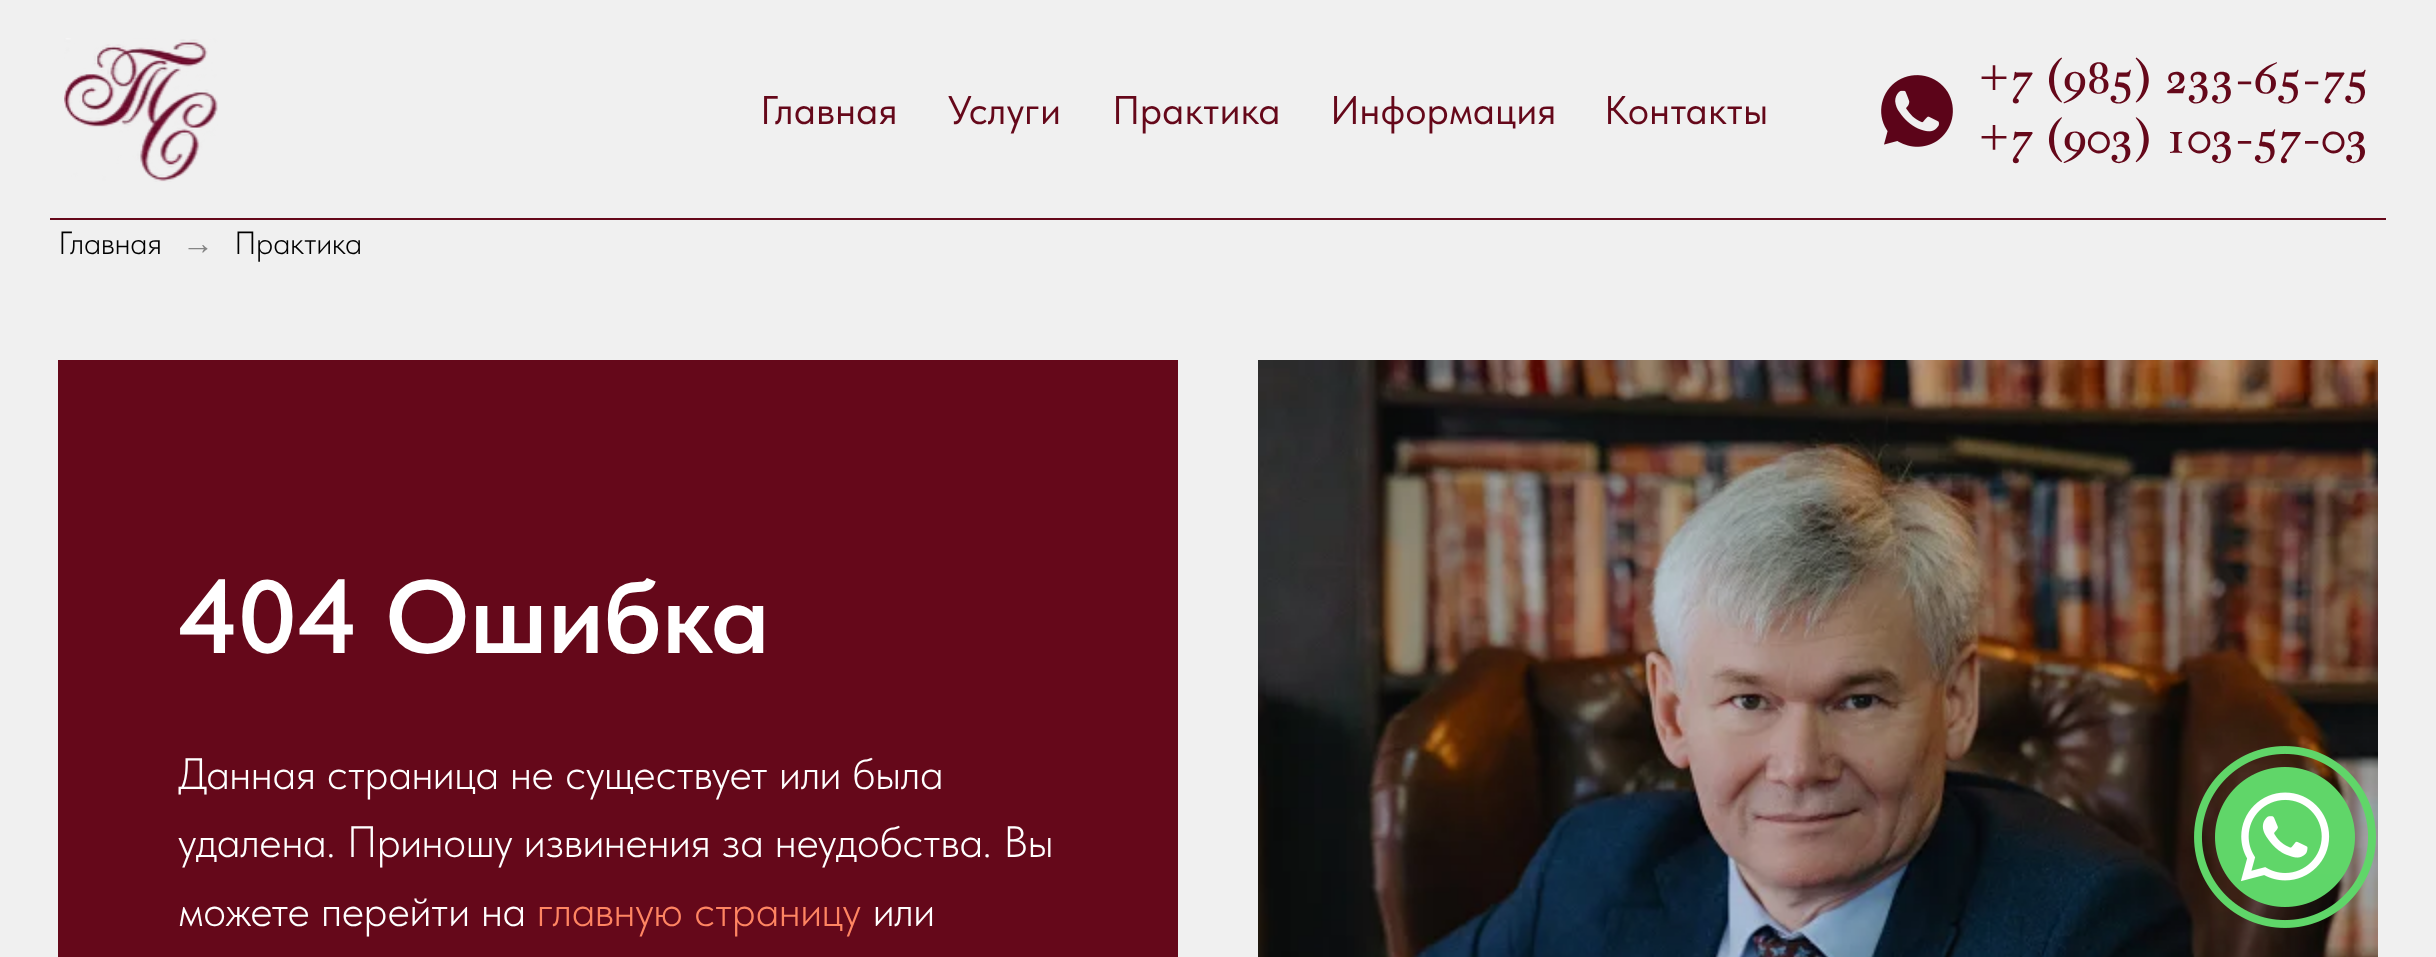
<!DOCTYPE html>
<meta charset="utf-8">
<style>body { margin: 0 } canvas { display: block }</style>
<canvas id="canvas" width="2436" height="957"></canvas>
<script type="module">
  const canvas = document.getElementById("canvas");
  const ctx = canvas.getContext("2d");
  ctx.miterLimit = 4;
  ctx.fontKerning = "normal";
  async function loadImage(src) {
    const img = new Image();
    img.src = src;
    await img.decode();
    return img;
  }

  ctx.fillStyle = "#f0f0f0";
  ctx.fillRect(0, 0, 2436, 957);
  ctx.drawImage(await loadImage("img1.png"), 64, 38, 154, 144);
  ctx.font = "40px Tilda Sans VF";
  ctx.fillStyle = "#65081a";
  ctx.fillText("Главная", 760, 124);
  ctx.fillText("Услуги", 948, 124);
  ctx.fillText("Практика", 1112, 124);
  ctx.fillText("Информация", 1330, 124);
  ctx.fillText("Контакты", 1604, 124);
  ctx.drawImage(await loadImage("img2.png"), 1881, 75, 72, 72);
  ctx.drawImage(await loadImage("img3.png"), 1981, 57, 385, 107);
  ctx.fillRect(50, 218, 2336, 2);
  ctx.font = "300 32px Tilda Sans VF";
  ctx.fillStyle = "#000000";
  ctx.fillText("Главная", 58, 254);
  ctx.font = "32px Liberation Sans";
  ctx.fillStyle = "#858585";
  ctx.fillText("→", 182, 254);
  ctx.font = "300 32px Tilda Sans VF";
  ctx.fillStyle = "#000000";
  ctx.fillText("Практика", 234, 254);
  ctx.fillStyle = "#65081a";
  ctx.fillRect(58, 360, 1120, 597);
  ctx.font = "600 104px Tilda Sans VF";
  ctx.fillStyle = "#ffffff";
  ctx.fillText("404 Ошибка", 178, 653);
  ctx.font = "300 44px Tilda Sans VF";
  ctx.fillText("Данная страница не существует или была", 178, 789);
  ctx.fillText("удалена. Приношу извинения за неудобства. Вы", 178, 857);
  ctx.fillText("можете перейти на", 178, 926);
  ctx.fillStyle = "#ff8562";
  ctx.fillText("главную страницу", 537, 926);
  ctx.fillStyle = "#ffffff";
  ctx.fillText("или", 873, 926);
  ctx.drawImage(await loadImage("img4.png"), 1258, 360, 1120, 597);
  ctx.drawImage(await loadImage("img5.png"), 2194, 746, 182, 182);
</script>
